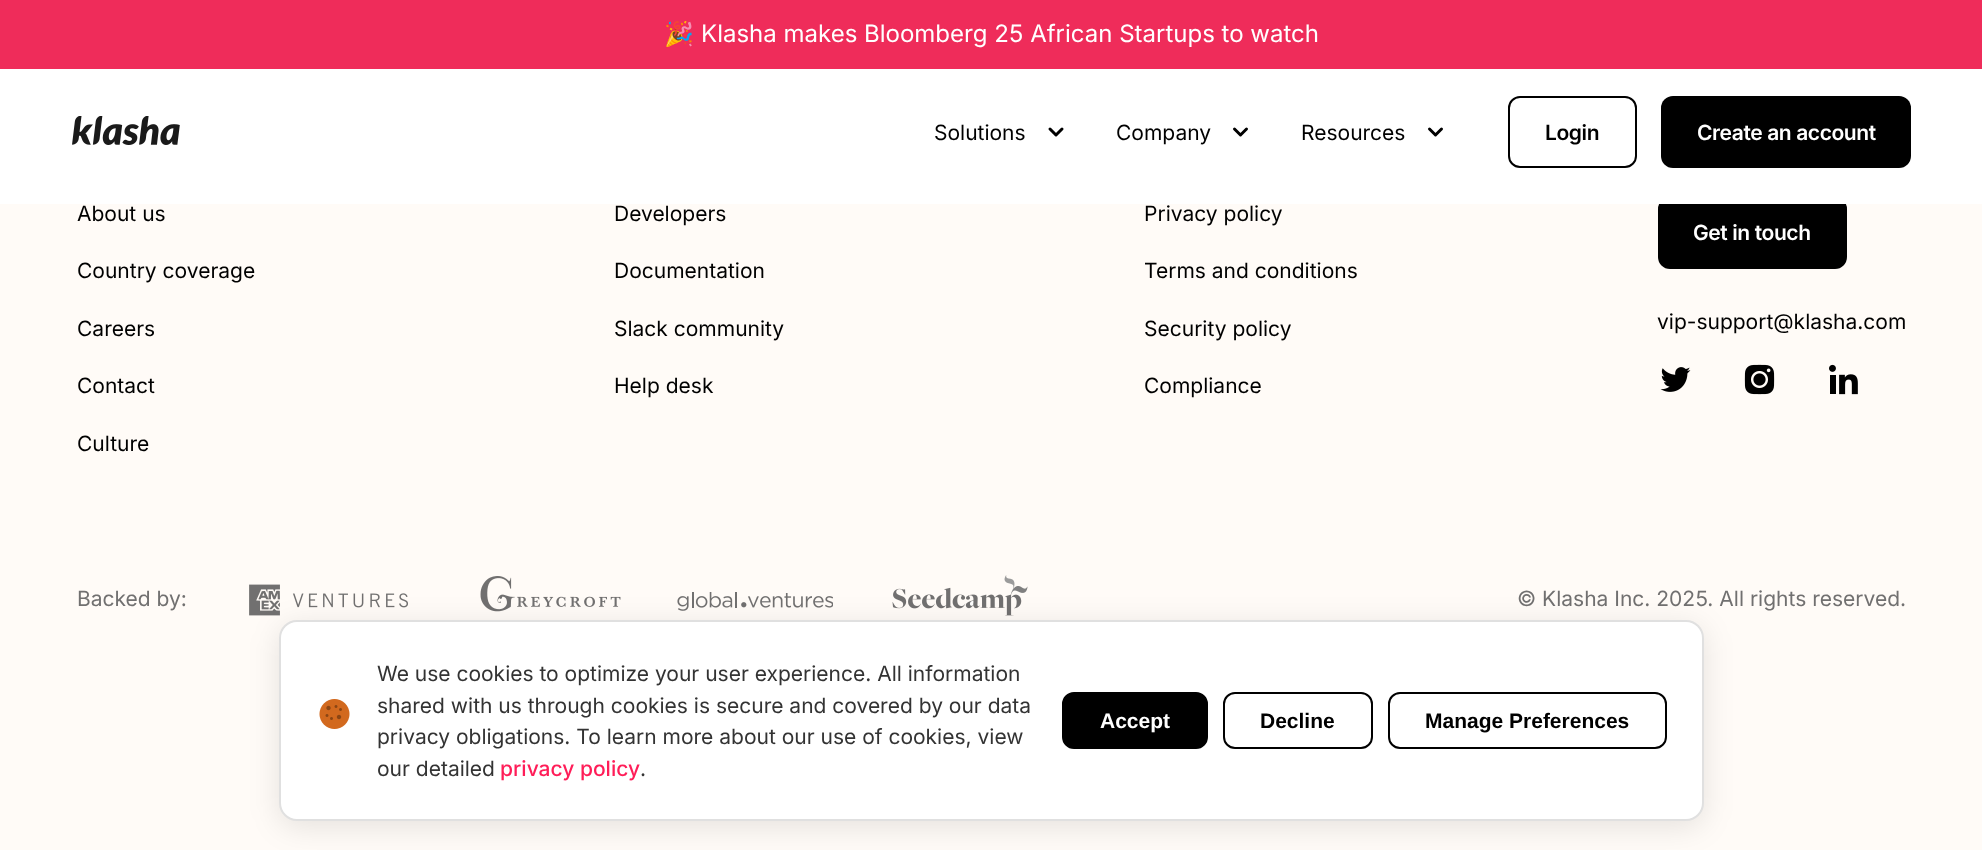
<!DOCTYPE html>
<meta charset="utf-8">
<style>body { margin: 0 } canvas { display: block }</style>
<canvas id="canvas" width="1982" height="850"></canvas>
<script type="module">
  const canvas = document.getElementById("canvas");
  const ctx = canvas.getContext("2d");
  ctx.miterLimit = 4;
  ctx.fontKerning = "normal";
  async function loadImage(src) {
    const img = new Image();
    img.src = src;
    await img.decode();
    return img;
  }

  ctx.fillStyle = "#fffbf7";
  ctx.fillRect(0, 0, 1982, 850);
  ctx.fillStyle = "#ef2c5a";
  ctx.fillRect(0, 0, 1982, 69);
  ctx.font = "24px Noto Color Emoji";
  ctx.fillStyle = "#ffffff";
  ctx.fillText("🎉", 664, 42);
  ctx.font = "24px Inter";
  ctx.fillText("Klasha makes Bloomberg 25 African Startups to watch", 701, 42);
  ctx.fillStyle = "#000000";
  ctx.beginPath();
  ctx.roundRect(1658, 197, 189, 72, 12);
  ctx.fill();
  ctx.fillStyle = "#ffffff";
  ctx.fillRect(0, 69, 1982, 135);
  ctx.drawImage(await loadImage("img1.png"), 72, 116, 108, 29);
  ctx.font = "21px Inter";
  ctx.fillStyle = "#000000";
  ctx.fillText("Solutions", 934, 140);
  ctx.beginPath();
  ctx.moveTo(1050, 129);
  ctx.lineTo(1056, 135);
  ctx.lineTo(1062, 129);
  ctx.strokeStyle = "#000000";
  ctx.lineWidth = 3;
  ctx.lineCap = "round";
  ctx.lineJoin = "round";
  ctx.stroke();
  ctx.fillText("Company", 1116, 140);
  ctx.beginPath();
  ctx.moveTo(1234.5, 129);
  ctx.lineTo(1240.5, 135);
  ctx.lineTo(1246.5, 129);
  ctx.stroke();
  ctx.fillText("Resources", 1301, 140);
  ctx.beginPath();
  ctx.moveTo(1429.5, 129);
  ctx.lineTo(1435.5, 135);
  ctx.lineTo(1441.5, 129);
  ctx.stroke();
  ctx.beginPath();
  ctx.roundRect(1509, 97, 127, 70, 11);
  ctx.lineWidth = 2;
  ctx.lineJoin = "miter";
  ctx.stroke();
  ctx.letterSpacing = "-0.4px";
  ctx.font = "600 21px Inter";
  ctx.fillText("Login", 1545, 140);
  ctx.beginPath();
  ctx.roundRect(1661, 96, 250, 72, 12);
  ctx.fill();
  ctx.fillStyle = "#ffffff";
  ctx.fillText("Create an account", 1697, 140);
  ctx.letterSpacing = "0px";
  ctx.font = "21px Inter";
  ctx.fillStyle = "#000000";
  ctx.fillText("About us", 77, 221);
  ctx.fillText("Country coverage", 77, 278);
  ctx.fillText("Careers", 77, 336);
  ctx.fillText("Contact", 77, 393);
  ctx.fillText("Culture", 77, 451);
  ctx.fillText("Developers", 614, 221);
  ctx.fillText("Documentation", 614, 278);
  ctx.fillText("Slack community", 614, 336);
  ctx.fillText("Help desk", 614, 393);
  ctx.fillText("Privacy policy", 1144, 221);
  ctx.fillText("Terms and conditions", 1144, 278);
  ctx.fillText("Security policy", 1144, 336);
  ctx.fillText("Compliance", 1144, 393);
  ctx.letterSpacing = "-0.4px";
  ctx.font = "600 21px Inter";
  ctx.fillStyle = "#ffffff";
  ctx.fillText("Get in touch", 1693, 240);
  ctx.letterSpacing = "0px";
  ctx.font = "21px Inter";
  ctx.fillStyle = "#000000";
  ctx.fillText("vip-support@klasha.com", 1657, 329);
  ctx.drawImage(await loadImage("img2.png"), 1660, 367, 31, 25);
  ctx.drawImage(await loadImage("img3.png"), 1744, 364, 31, 31);
  ctx.drawImage(await loadImage("img4.png"), 1829, 364, 29, 31);
  ctx.fillStyle = "#717070";
  ctx.fillText("Backed by:", 77, 606);
  ctx.drawImage(await loadImage("img5.png"), 249, 584, 159, 32);
  ctx.drawImage(await loadImage("img6.png"), 480, 576, 141, 36);
  ctx.drawImage(await loadImage("img7.png"), 677, 592, 156, 19);
  ctx.drawImage(await loadImage("img8.png"), 892, 575, 136, 41);
  ctx.fillText("© Klasha Inc. 2025. All rights reserved.", 1517, 606);
  ctx.fillStyle = "rgba(0, 0, 0, 0.1)";
  ctx.filter = "blur(15px)";
  ctx.beginPath();
  ctx.roundRect(279, 626, 1425, 201, 18);
  ctx.fill();
  ctx.filter = "none";
  ctx.fillStyle = "#ffffff";
  ctx.beginPath();
  ctx.roundRect(280, 621, 1423, 199, 17);
  ctx.fill();
  ctx.strokeStyle = "#e0e0e0";
  ctx.stroke();
  ctx.drawImage(await loadImage("img9.png"), 319, 699, 31, 30);
  ctx.fillStyle = "#333333";
  ctx.fillText("We use cookies to optimize your user experience. All information", 377, 681);
  ctx.fillText("shared with us through cookies is secure and covered by our data", 377, 713);
  ctx.fillText("privacy obligations. To learn more about our use of cookies, view", 377, 744);
  ctx.fillText("our detailed", 377, 776);
  ctx.font = "500 21px Inter";
  ctx.fillStyle = "#ff1d58";
  ctx.fillText("privacy policy", 500, 776);
  ctx.font = "21px Inter";
  ctx.fillStyle = "#333333";
  ctx.fillText(".", 640, 776);
  ctx.fillStyle = "#000000";
  ctx.beginPath();
  ctx.roundRect(1063, 693, 144, 55, 11);
  ctx.fill();
  ctx.strokeStyle = "#000000";
  ctx.stroke();
  ctx.font = "bold 21px Liberation Sans";
  ctx.fillStyle = "#ffffff";
  ctx.fillText("Accept", 1100, 728);
  ctx.beginPath();
  ctx.roundRect(1224, 693, 148, 55, 11);
  ctx.stroke();
  ctx.fillStyle = "#000000";
  ctx.fillText("Decline", 1260, 728);
  ctx.beginPath();
  ctx.roundRect(1389, 693, 277, 55, 11);
  ctx.stroke();
  ctx.fillText("Manage Preferences", 1425, 728);
</script>
